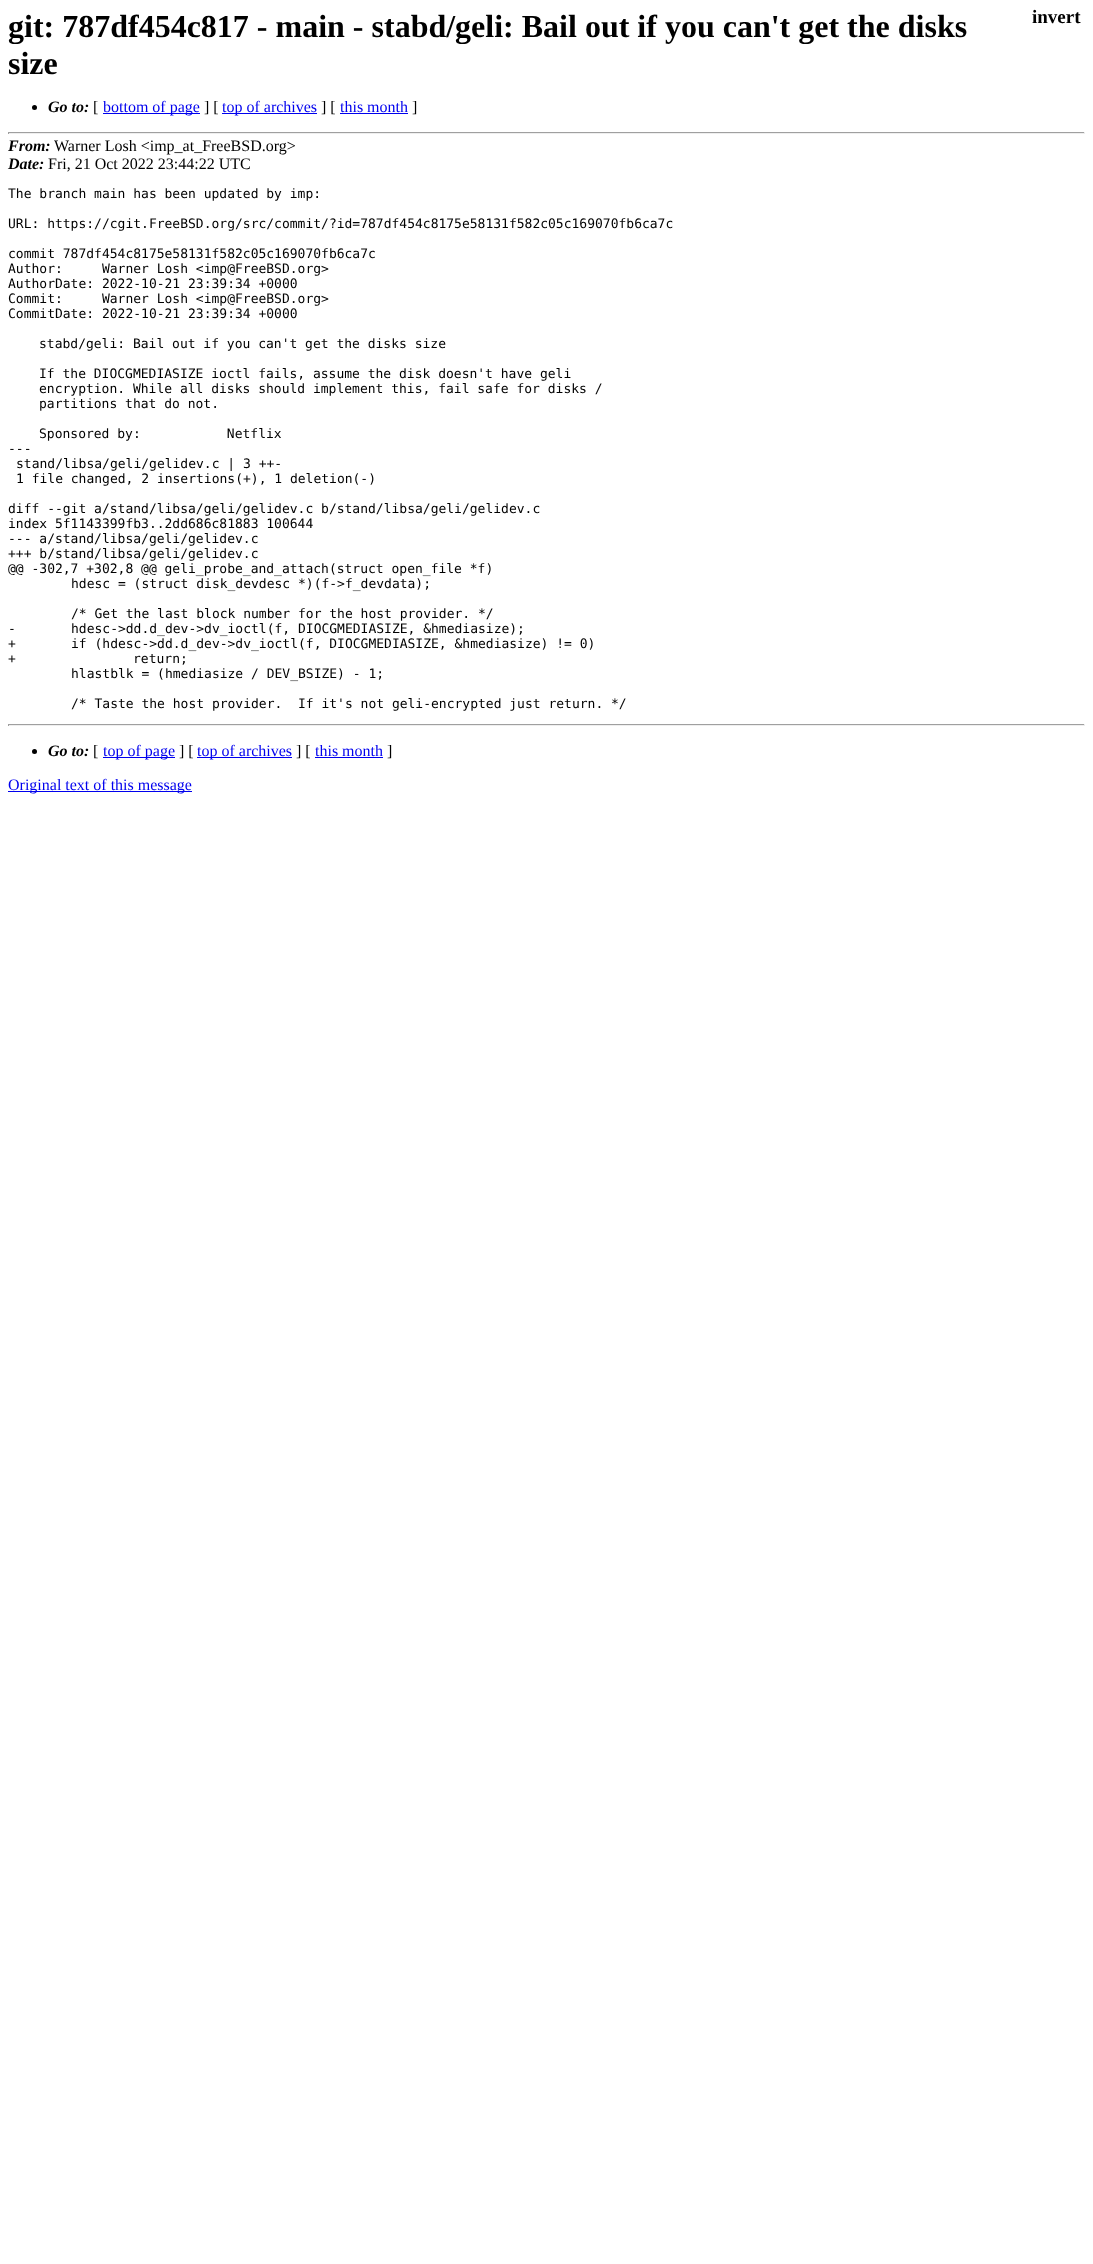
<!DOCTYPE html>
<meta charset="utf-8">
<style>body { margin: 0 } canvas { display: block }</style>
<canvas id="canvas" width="1093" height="2264"></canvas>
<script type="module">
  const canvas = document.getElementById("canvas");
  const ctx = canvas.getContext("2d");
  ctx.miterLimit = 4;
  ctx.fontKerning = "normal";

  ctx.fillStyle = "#ffffff";
  ctx.fillRect(0, 0, 1093, 2264);
  ctx.font = "bold 32px Liberation Serif";
  ctx.fillStyle = "#000000";
  ctx.fillText("git: 787df454c817 - main - stabd/geli: Bail out if you can't get the disks", 8, 37);
  ctx.fillText("size", 8, 74);
  ctx.beginPath();
  ctx.arc(34.5, 107.5, 2.5, 0, Math.PI * 2);
  ctx.fill();
  ctx.font = "italic bold 16px Liberation Serif";
  ctx.fillText("Go to:", 48, 112);
  ctx.font = "16px Liberation Serif";
  ctx.fillText("[", 93, 112);
  ctx.fillStyle = "#0000ee";
  ctx.fillRect(103, 113, 97, 1);
  ctx.fillText("bottom of page", 103, 112);
  ctx.fillStyle = "#000000";
  ctx.fillText("] [", 204, 112);
  ctx.fillStyle = "#0000ee";
  ctx.fillRect(222, 113, 95, 1);
  ctx.fillText("top of archives", 222, 112);
  ctx.fillStyle = "#000000";
  ctx.fillText("] [", 321, 112);
  ctx.fillStyle = "#0000ee";
  ctx.fillText("this month", 340, 112);
  ctx.fillRect(340, 113, 68, 1);
  ctx.fillStyle = "#000000";
  ctx.fillText("]", 412, 112);
  ctx.fillStyle = "#9f9f9f";
  ctx.fillRect(8, 132, 1077, 1);
  ctx.fillStyle = "#eeeeee";
  ctx.fillRect(1084, 132, 1, 2);
  ctx.fillRect(8, 133, 1077, 1);
  ctx.fillStyle = "#9f9f9f";
  ctx.fillRect(8, 132, 1, 2);
  ctx.font = "bold 19px Liberation Serif";
  ctx.fillStyle = "#000000";
  ctx.fillText("invert", 1032, 23);
  ctx.font = "italic bold 16px Liberation Serif";
  ctx.fillText("From:", 8, 151);
  ctx.font = "16px Liberation Serif";
  ctx.fillText("Warner Losh <imp_at_FreeBSD.org>", 54, 151);
  ctx.font = "italic bold 16px Liberation Serif";
  ctx.fillText("Date:", 8, 169);
  ctx.font = "16px Liberation Serif";
  ctx.fillText("Fri, 21 Oct 2022 23:44:22 UTC", 48, 169);
  ctx.font = "13px DejaVu Sans Mono";
  ctx.fillText("The branch main has been updated by imp:", 8, 198);
  ctx.fillText("URL: https://cgit.FreeBSD.org/src/commit/?id=787df454c8175e58131f582c05c169070fb6ca7c", 8, 228);
  ctx.fillText("commit 787df454c8175e58131f582c05c169070fb6ca7c", 8, 258);
  ctx.fillText("Author:     Warner Losh <imp@FreeBSD.org>", 8, 273);
  ctx.fillText("AuthorDate: 2022-10-21 23:39:34 +0000", 8, 288);
  ctx.fillText("Commit:     Warner Losh <imp@FreeBSD.org>", 8, 303);
  ctx.fillText("CommitDate: 2022-10-21 23:39:34 +0000", 8, 318);
  ctx.fillText("stabd/geli: Bail out if you can't get the disks size", 39, 348);
  ctx.fillText("If the DIOCGMEDIASIZE ioctl fails, assume the disk doesn't have geli", 39, 378);
  ctx.fillText("encryption. While all disks should implement this, fail safe for disks /", 39, 393);
  ctx.fillText("partitions that do not.", 39, 408);
  ctx.fillText("Sponsored by:           Netflix", 39, 438);
  ctx.fillText("---", 8, 453);
  ctx.fillText("stand/libsa/geli/gelidev.c | 3 ++-", 16, 468);
  ctx.fillText("1 file changed, 2 insertions(+), 1 deletion(-)", 16, 483);
  ctx.fillText("diff --git a/stand/libsa/geli/gelidev.c b/stand/libsa/geli/gelidev.c", 8, 513);
  ctx.fillText("index 5f1143399fb3..2dd686c81883 100644", 8, 528);
  ctx.fillText("--- a/stand/libsa/geli/gelidev.c", 8, 543);
  ctx.fillText("+++ b/stand/libsa/geli/gelidev.c", 8, 558);
  ctx.fillText("@@ -302,7 +302,8 @@ geli_probe_and_attach(struct open_file *f)", 8, 573);
  ctx.fillText("hdesc = (struct disk_devdesc *)(f->f_devdata);", 71, 588);
  ctx.fillText("/* Get the last block number for the host provider. */", 71, 618);
  ctx.fillText("-", 8, 633);
  ctx.fillText("hdesc->dd.d_dev->dv_ioctl(f, DIOCGMEDIASIZE, &hmediasize);", 71, 633);
  ctx.fillText("+", 8, 648);
  ctx.fillText("if (hdesc->dd.d_dev->dv_ioctl(f, DIOCGMEDIASIZE, &hmediasize) != 0)", 71, 648);
  ctx.fillText("+", 8, 663);
  ctx.fillText("return;", 133, 663);
  ctx.fillText("hlastblk = (hmediasize / DEV_BSIZE) - 1;", 71, 678);
  ctx.fillText("/* Taste the host provider.  If it's not geli-encrypted just return. */", 71, 708);
  ctx.fillStyle = "#9f9f9f";
  ctx.fillRect(8, 724, 1077, 1);
  ctx.fillStyle = "#eeeeee";
  ctx.fillRect(1084, 724, 1, 2);
  ctx.fillRect(8, 725, 1077, 1);
  ctx.fillStyle = "#9f9f9f";
  ctx.fillRect(8, 724, 1, 2);
  ctx.fillStyle = "#000000";
  ctx.beginPath();
  ctx.arc(34.5, 751.5, 2.5, 0, Math.PI * 2);
  ctx.fill();
  ctx.font = "italic bold 16px Liberation Serif";
  ctx.fillText("Go to:", 48, 756);
  ctx.font = "16px Liberation Serif";
  ctx.fillText("[", 93, 756);
  ctx.fillStyle = "#0000ee";
  ctx.fillRect(103, 757, 72, 1);
  ctx.fillText("top of page", 103, 756);
  ctx.fillStyle = "#000000";
  ctx.fillText("] [", 179, 756);
  ctx.fillStyle = "#0000ee";
  ctx.fillRect(197, 757, 95, 1);
  ctx.fillText("top of archives", 197, 756);
  ctx.fillStyle = "#000000";
  ctx.fillText("] [", 296, 756);
  ctx.fillStyle = "#0000ee";
  ctx.fillText("this month", 315, 756);
  ctx.fillRect(315, 757, 68, 1);
  ctx.fillStyle = "#000000";
  ctx.fillText("]", 387, 756);
  ctx.fillStyle = "#0000ee";
  ctx.fillRect(8, 791, 184, 1);
  ctx.fillText("Original text of this message", 8, 790);
</script>
